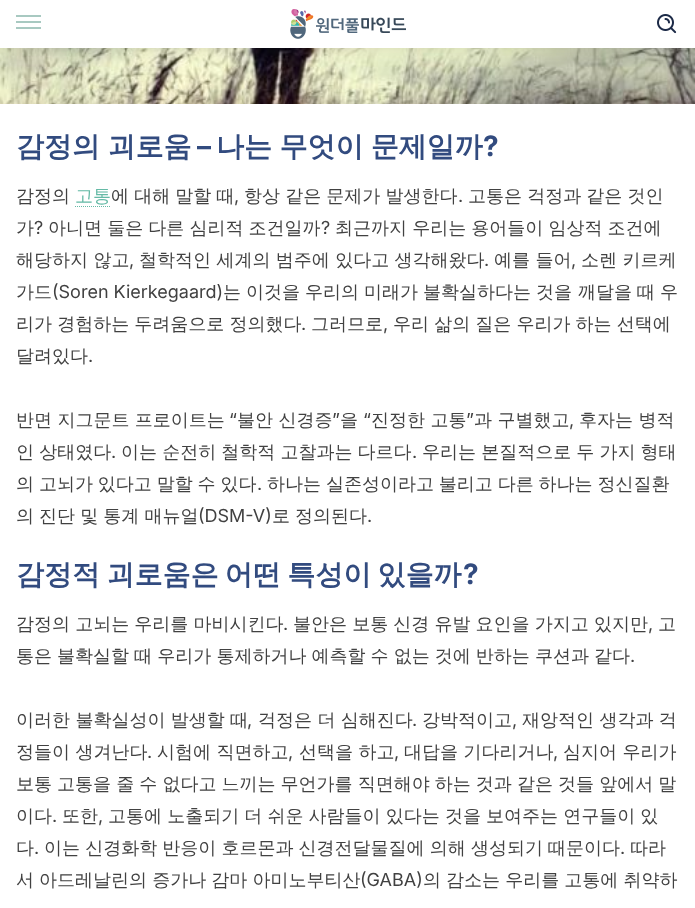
<!DOCTYPE html>
<meta charset="utf-8">
<style>body { margin: 0 } canvas { display: block }</style>
<canvas id="canvas" width="695" height="908"></canvas>
<script type="module">
  const canvas = document.getElementById("canvas");
  const ctx = canvas.getContext("2d");
  ctx.miterLimit = 4;
  ctx.fontKerning = "normal";
  async function loadImage(src) {
    const img = new Image();
    img.src = src;
    await img.decode();
    return img;
  }

  ctx.fillStyle = "#ffffff";
  ctx.fillRect(0, 0, 695, 908);
  ctx.drawImage(await loadImage("img3.png"), 0, 48, 695, 56);
  ctx.fillStyle = "rgba(0, 0, 0, 0.25)";
  ctx.filter = "blur(12px)";
  ctx.beginPath();
  ctx.rect(0, -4, 695, 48);
  ctx.fill();
  ctx.filter = "none";
  ctx.fillStyle = "#ffffff";
  ctx.fillRect(0, 0, 695, 48);
  ctx.fillStyle = "#a8c9c1";
  ctx.fillRect(16, 15, 25, 2);
  ctx.fillRect(16, 21, 25, 2);
  ctx.fillRect(16, 27, 25, 2);
  ctx.drawImage(await loadImage("img1.png"), 290, 9, 116, 30);
  ctx.drawImage(await loadImage("img2.png"), 657, 14, 20, 20);
  ctx.wordSpacing = "-1px";
  ctx.font = "bold 28px WenQuanYi Zen Hei";
  ctx.fillStyle = "#324b7f";
  ctx.fillText("감정의 괴로움", 16, 156);
  ctx.wordSpacing = "0px";
  ctx.font = "bold 28px Inter";
  ctx.fillText("–", 197, 156);
  ctx.wordSpacing = "-1px";
  ctx.font = "bold 28px WenQuanYi Zen Hei";
  ctx.fillText("나는 무엇이 문제일까", 216, 156);
  ctx.wordSpacing = "0px";
  ctx.font = "bold 28px Inter";
  ctx.fillText("?", 483, 156);
  ctx.font = "500 18px WenQuanYi Zen Hei";
  ctx.fillStyle = "#414141";
  ctx.fillText("감정의", 16, 202);
  ctx.fillStyle = "#65baa6";
  ctx.fillText("고통", 75, 202);
  ctx.beginPath();
  ctx.moveTo(75, 206.5);
  ctx.lineTo(111, 206.5);
  ctx.strokeStyle = "#65baa6";
  ctx.setLineDash([1, 1]);
  ctx.stroke();
  ctx.wordSpacing = "-0.25px";
  ctx.fillStyle = "#414141";
  ctx.fillText("에 대해 말할 때", 111, 202);
  ctx.wordSpacing = "0px";
  ctx.font = "18px Inter";
  ctx.fillText(",", 234, 202);
  ctx.wordSpacing = "-0.25px";
  ctx.font = "500 18px WenQuanYi Zen Hei";
  ctx.fillText("항상 같은 문제가 발생한다", 244, 202);
  ctx.wordSpacing = "0px";
  ctx.font = "18px Inter";
  ctx.fillText(".", 458, 202);
  ctx.wordSpacing = "-0.25px";
  ctx.font = "500 18px WenQuanYi Zen Hei";
  ctx.fillText("고통은 걱정과 같은 것인", 468, 202);
  ctx.wordSpacing = "0px";
  ctx.fillText("가", 16, 234);
  ctx.font = "18px Inter";
  ctx.fillText("?", 34, 234);
  ctx.wordSpacing = "-0.25px";
  ctx.font = "500 18px WenQuanYi Zen Hei";
  ctx.fillText("아니면 둘은 다른 심리적 조건일까", 48, 234);
  ctx.wordSpacing = "0px";
  ctx.font = "18px Inter";
  ctx.fillText("?", 321, 234);
  ctx.wordSpacing = "-0.25px";
  ctx.font = "500 18px WenQuanYi Zen Hei";
  ctx.fillText("최근까지 우리는 용어들이 임상적 조건에", 335, 234);
  ctx.wordSpacing = "0px";
  ctx.fillText("해당하지 않고", 16, 266);
  ctx.font = "18px Inter";
  ctx.fillText(",", 129, 266);
  ctx.font = "500 18px WenQuanYi Zen Hei";
  ctx.fillText("철학적인 세계의 범주에 있다고 생각해왔다", 139, 266);
  ctx.font = "18px Inter";
  ctx.fillText(".", 484, 266);
  ctx.font = "500 18px WenQuanYi Zen Hei";
  ctx.fillText("예를 들어", 494, 266);
  ctx.font = "18px Inter";
  ctx.fillText(",", 571, 266);
  ctx.font = "500 18px WenQuanYi Zen Hei";
  ctx.fillText("소렌 키르케", 581, 266);
  ctx.fillText("가드", 16, 298);
  ctx.font = "18px Inter";
  ctx.fillText("(Soren Kierkegaard)", 52, 298);
  ctx.font = "500 18px WenQuanYi Zen Hei";
  ctx.fillText("는", 223, 298);
  ctx.fillText("이것을", 246, 298);
  ctx.fillText("우리의", 305, 298);
  ctx.fillText("미래가", 364, 298);
  ctx.fillText("불확실하다는", 423, 298);
  ctx.fillText("것을", 536, 298);
  ctx.fillText("깨달을", 578, 298);
  ctx.fillText("때", 637, 298);
  ctx.fillText("우", 660, 298);
  ctx.wordSpacing = "-0.25px";
  ctx.fillText("리가 경험하는 두려움으로 정의했다", 16, 330);
  ctx.wordSpacing = "0px";
  ctx.font = "18px Inter";
  ctx.fillText(".", 301, 330);
  ctx.font = "500 18px WenQuanYi Zen Hei";
  ctx.fillText("그러므로", 311, 330);
  ctx.font = "18px Inter";
  ctx.fillText(",", 383, 330);
  ctx.wordSpacing = "-0.25px";
  ctx.font = "500 18px WenQuanYi Zen Hei";
  ctx.fillText("우리 삶의 질은 우리가 하는 선택에", 393, 330);
  ctx.wordSpacing = "0px";
  ctx.fillText("달려있다", 16, 362);
  ctx.font = "18px Inter";
  ctx.fillText(".", 88, 362);
  ctx.font = "500 18px WenQuanYi Zen Hei";
  ctx.fillText("반면 지그문트 프로이트는", 16, 426);
  ctx.font = "18px Inter";
  ctx.fillText("“", 229, 426);
  ctx.font = "500 18px WenQuanYi Zen Hei";
  ctx.fillText("불안 신경증", 237, 426);
  ctx.font = "18px Inter";
  ctx.fillText("”", 332, 426);
  ctx.font = "500 18px WenQuanYi Zen Hei";
  ctx.fillText("을", 340, 426);
  ctx.font = "18px Inter";
  ctx.fillText("“", 363, 426);
  ctx.font = "500 18px WenQuanYi Zen Hei";
  ctx.fillText("진정한 고통", 371, 426);
  ctx.font = "18px Inter";
  ctx.fillText("”", 466, 426);
  ctx.font = "500 18px WenQuanYi Zen Hei";
  ctx.fillText("과 구별했고", 474, 426);
  ctx.font = "18px Inter";
  ctx.fillText(",", 569, 426);
  ctx.font = "500 18px WenQuanYi Zen Hei";
  ctx.fillText("후자는 병적", 579, 426);
  ctx.wordSpacing = "-0.25px";
  ctx.fillText("인 상태였다", 16, 458);
  ctx.wordSpacing = "0px";
  ctx.font = "18px Inter";
  ctx.fillText(".", 111, 458);
  ctx.wordSpacing = "-0.25px";
  ctx.font = "500 18px WenQuanYi Zen Hei";
  ctx.fillText("이는 순전히 철학적 고찰과는 다르다", 121, 458);
  ctx.wordSpacing = "0px";
  ctx.font = "18px Inter";
  ctx.fillText(".", 412, 458);
  ctx.wordSpacing = "-0.25px";
  ctx.font = "500 18px WenQuanYi Zen Hei";
  ctx.fillText("우리는 본질적으로 두 가지 형태", 422, 458);
  ctx.wordSpacing = "-0.5px";
  ctx.fillText("의 고뇌가 있다고 말할 수 있다", 16, 490);
  ctx.wordSpacing = "0px";
  ctx.font = "18px Inter";
  ctx.fillText(".", 257, 490);
  ctx.wordSpacing = "-0.5px";
  ctx.font = "500 18px WenQuanYi Zen Hei";
  ctx.fillText("하나는 실존성이라고 불리고 다른 하나는 정신질환", 267, 490);
  ctx.wordSpacing = "-0.3px";
  ctx.fillText("의 진단 및 통계 매뉴얼", 16, 522);
  ctx.wordSpacing = "0px";
  ctx.font = "18px Inter";
  ctx.fillText("(DSM-V)", 198, 522);
  ctx.wordSpacing = "-0.3px";
  ctx.font = "500 18px WenQuanYi Zen Hei";
  ctx.fillText("로 정의된다", 272, 522);
  ctx.wordSpacing = "0px";
  ctx.font = "18px Inter";
  ctx.fillText(".", 367, 522);
  ctx.wordSpacing = "-2px";
  ctx.font = "bold 28px WenQuanYi Zen Hei";
  ctx.fillStyle = "#324b7f";
  ctx.fillText("감정적 괴로움은 어떤 특성이 있을까", 16, 584);
  ctx.wordSpacing = "0px";
  ctx.font = "bold 28px Inter";
  ctx.fillText("?", 463, 584);
  ctx.wordSpacing = "-0.25px";
  ctx.font = "500 18px WenQuanYi Zen Hei";
  ctx.fillStyle = "#414141";
  ctx.fillText("감정의 고뇌는 우리를 마비시킨다", 16, 630);
  ctx.wordSpacing = "0px";
  ctx.font = "18px Inter";
  ctx.fillText(".", 283, 630);
  ctx.wordSpacing = "-0.25px";
  ctx.font = "500 18px WenQuanYi Zen Hei";
  ctx.fillText("불안은 보통 신경 유발 요인을 가지고 있지만", 293, 630);
  ctx.wordSpacing = "0px";
  ctx.font = "18px Inter";
  ctx.fillText(",", 648, 630);
  ctx.font = "500 18px WenQuanYi Zen Hei";
  ctx.fillText("고", 658, 630);
  ctx.wordSpacing = "-0.3px";
  ctx.fillText("통은 불확실할 때 우리가 통제하거나 예측할 수 없는 것에 반하는 쿠션과 같다", 16, 662);
  ctx.wordSpacing = "0px";
  ctx.font = "18px Inter";
  ctx.fillText(".", 630, 662);
  ctx.font = "500 18px WenQuanYi Zen Hei";
  ctx.fillText("이러한 불확실성이 발생할 때", 16, 726);
  ctx.font = "18px Inter";
  ctx.fillText(",", 247, 726);
  ctx.font = "500 18px WenQuanYi Zen Hei";
  ctx.fillText("걱정은 더 심해진다", 258, 726);
  ctx.font = "18px Inter";
  ctx.fillText(".", 412, 726);
  ctx.font = "500 18px WenQuanYi Zen Hei";
  ctx.fillText("강박적이고", 422, 726);
  ctx.font = "18px Inter";
  ctx.fillText(",", 512, 726);
  ctx.font = "500 18px WenQuanYi Zen Hei";
  ctx.fillText("재앙적인 생각과 걱", 522, 726);
  ctx.fillText("정들이 생겨난다", 16, 758);
  ctx.font = "18px Inter";
  ctx.fillText(".", 147, 758);
  ctx.font = "500 18px WenQuanYi Zen Hei";
  ctx.fillText("시험에 직면하고", 157, 758);
  ctx.font = "18px Inter";
  ctx.fillText(",", 288, 758);
  ctx.font = "500 18px WenQuanYi Zen Hei";
  ctx.fillText("선택을 하고", 299, 758);
  ctx.font = "18px Inter";
  ctx.fillText(",", 394, 758);
  ctx.font = "500 18px WenQuanYi Zen Hei";
  ctx.fillText("대답을 기다리거나", 404, 758);
  ctx.font = "18px Inter";
  ctx.fillText(",", 553, 758);
  ctx.font = "500 18px WenQuanYi Zen Hei";
  ctx.fillText("심지어 우리가", 563, 758);
  ctx.wordSpacing = "-0.3px";
  ctx.fillText("보통 고통을 줄 수 없다고 느끼는 무언가를 직면해야 하는 것과 같은 것들 앞에서 말", 16, 790);
  ctx.wordSpacing = "0px";
  ctx.fillText("이다", 16, 822);
  ctx.font = "18px Inter";
  ctx.fillText(".", 52, 822);
  ctx.font = "500 18px WenQuanYi Zen Hei";
  ctx.fillText("또한", 62, 822);
  ctx.font = "18px Inter";
  ctx.fillText(",", 98, 822);
  ctx.wordSpacing = "-0.25px";
  ctx.font = "500 18px WenQuanYi Zen Hei";
  ctx.fillText("고통에 노출되기 더 쉬운 사람들이 있다는 것을 보여주는 연구들이 있", 108, 822);
  ctx.wordSpacing = "0px";
  ctx.fillText("다", 16, 854);
  ctx.font = "18px Inter";
  ctx.fillText(".", 34, 854);
  ctx.wordSpacing = "-0.25px";
  ctx.font = "500 18px WenQuanYi Zen Hei";
  ctx.fillText("이는 신경화학 반응이 호르몬과 신경전달물질에 의해 생성되기 때문이다", 44, 854);
  ctx.wordSpacing = "0px";
  ctx.font = "18px Inter";
  ctx.fillText(".", 620, 854);
  ctx.font = "500 18px WenQuanYi Zen Hei";
  ctx.fillText("따라", 630, 854);
  ctx.wordSpacing = "-0.3px";
  ctx.fillText("서 아드레날린의 증가나 감마 아미노부티산", 16, 886);
  ctx.wordSpacing = "0px";
  ctx.font = "18px Inter";
  ctx.fillText("(GABA)", 360, 886);
  ctx.wordSpacing = "-0.3px";
  ctx.font = "500 18px WenQuanYi Zen Hei";
  ctx.fillText("의 감소는 우리를 고통에 취약하", 423, 886);
</script>
